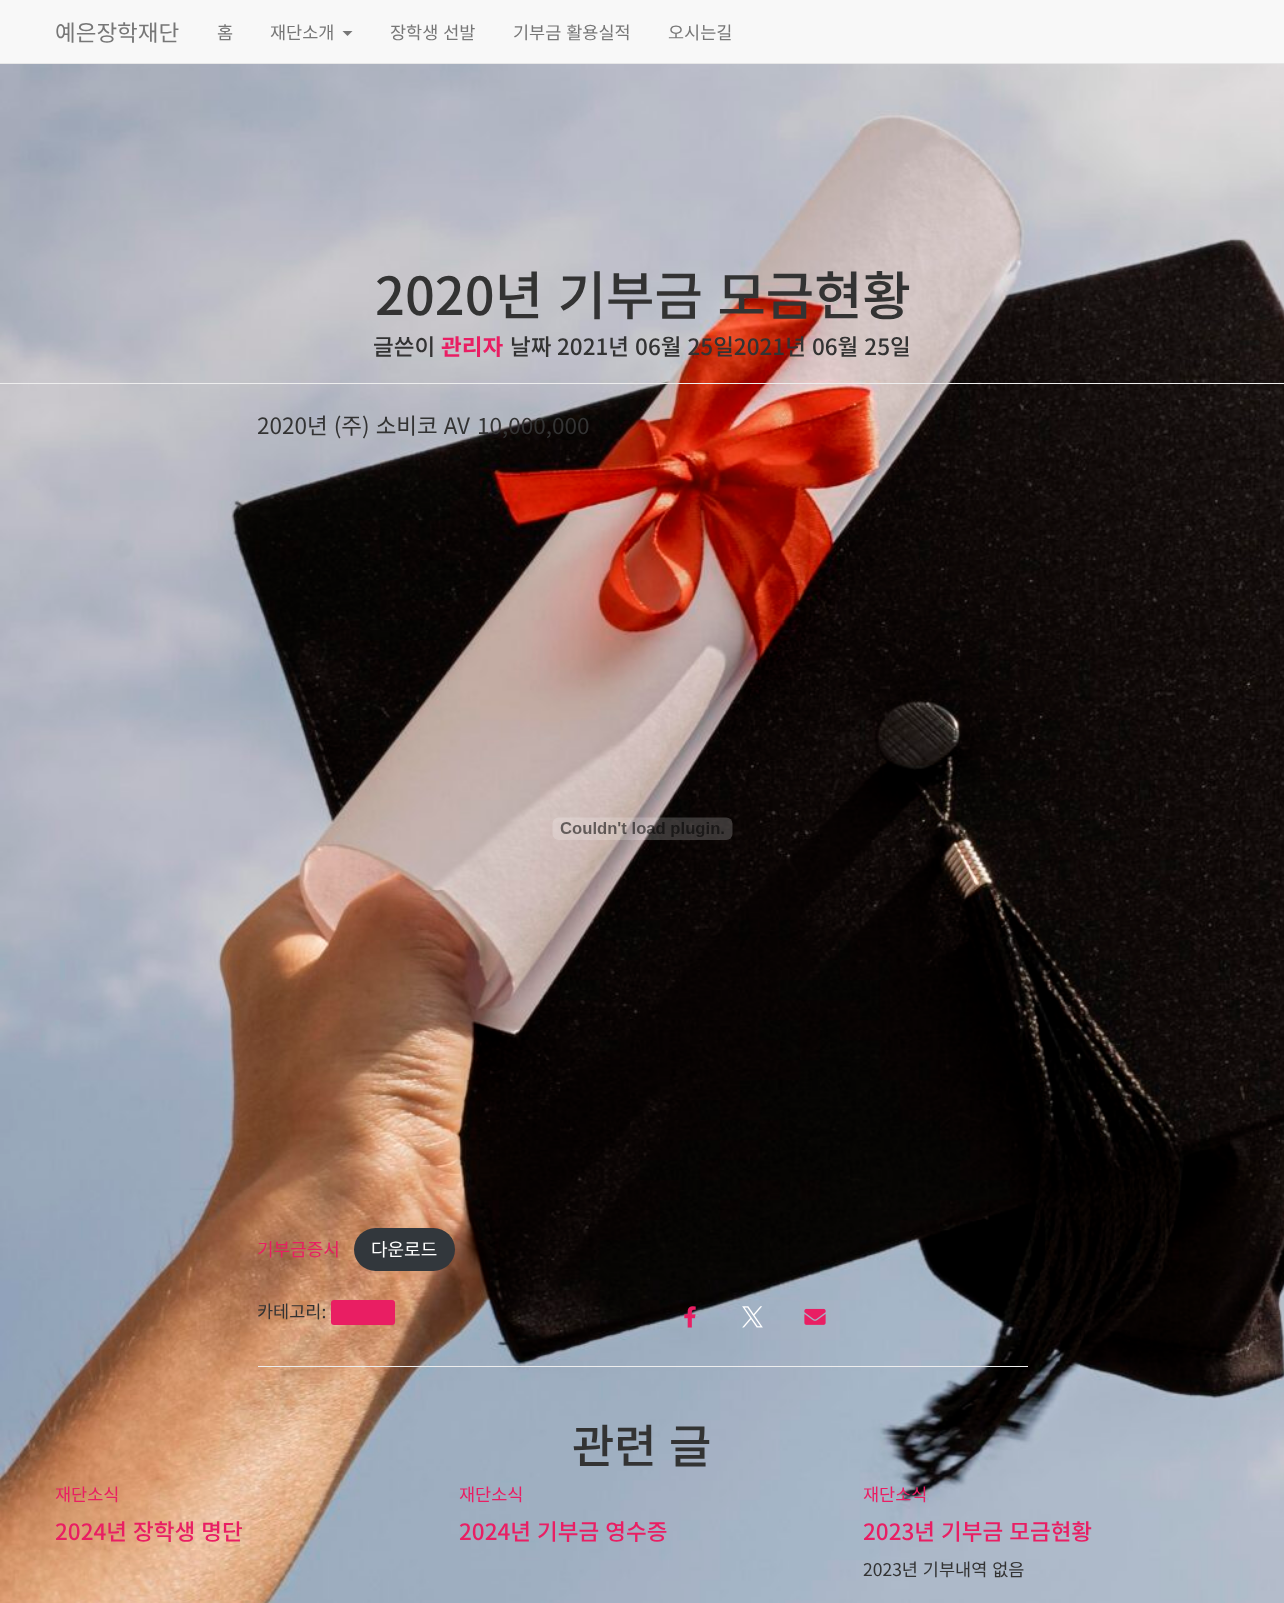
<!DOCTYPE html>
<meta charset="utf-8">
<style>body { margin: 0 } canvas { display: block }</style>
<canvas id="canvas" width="1284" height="1603"></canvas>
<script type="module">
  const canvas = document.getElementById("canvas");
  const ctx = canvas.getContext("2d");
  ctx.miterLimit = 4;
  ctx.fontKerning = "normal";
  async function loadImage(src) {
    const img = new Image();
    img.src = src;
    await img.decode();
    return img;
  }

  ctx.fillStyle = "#ffffff";
  ctx.fillRect(0, 0, 1284, 1603);
  ctx.drawImage(await loadImage("img1.png"), 0, 64, 1284, 1539);
  ctx.fillStyle = "#f8f8f8";
  ctx.fillRect(0, 0, 1284, 63);
  ctx.fillStyle = "#e7e7e7";
  ctx.fillRect(0, 63, 1284, 1);
  ctx.font = "22.5px Noto Sans KR";
  ctx.fillStyle = "#777777";
  ctx.fillText("예은장학재단", 55, 41);
  ctx.font = "17.5px Noto Sans KR";
  ctx.fillText("홈", 217, 39);
  ctx.fillText("재단소개", 270, 39);
  ctx.beginPath();
  ctx.moveTo(342.5, 31);
  ctx.lineTo(352.5, 31);
  ctx.lineTo(347.5, 36);
  ctx.closePath();
  ctx.fill();
  ctx.wordSpacing = "1px";
  ctx.fillText("장학생 선발", 390, 39);
  ctx.fillText("기부금 활용실적", 513, 39);
  ctx.wordSpacing = "0px";
  ctx.fillText("오시는길", 668, 39);
  ctx.fillStyle = "#eeeeee";
  ctx.fillRect(0, 383, 1284, 1);
  ctx.wordSpacing = "3px";
  ctx.font = "500 52.5px Noto Sans KR";
  ctx.fillStyle = "#333333";
  ctx.fillText("2020년 기부금 모금현황", 375, 315);
  ctx.wordSpacing = "0px";
  ctx.font = "500 22.5px Noto Sans KR";
  ctx.fillText("글쓴이", 373, 355);
  ctx.font = "bold 22.5px Noto Sans KR";
  ctx.fillStyle = "#e91e63";
  ctx.fillText("관리자", 441, 355);
  ctx.font = "500 22.5px Noto Sans KR";
  ctx.fillStyle = "#333333";
  ctx.fillText("날짜", 510, 355);
  ctx.wordSpacing = "1px";
  ctx.fillText("2021년 06월 25일2021년 06월 25일", 557, 355);
  ctx.font = "22.5px Noto Sans KR";
  ctx.fillText("2020년 (주) 소비코 AV", 257, 434);
  ctx.wordSpacing = "0px";
  ctx.fillText("10,000,000", 477, 434);
  ctx.drawImage(await loadImage("img2.png"), 552, 817, 181, 23);
  ctx.font = "18px Noto Sans KR";
  ctx.fillStyle = "#e91e63";
  ctx.fillText("기부금증서", 257, 1256);
  ctx.fillStyle = "#32373c";
  ctx.beginPath();
  ctx.roundRect(354, 1228, 101, 43, 21.5);
  ctx.fill();
  ctx.fillStyle = "#ffffff";
  ctx.fillText("다운로드", 371, 1256);
  ctx.font = "17.5px Noto Sans KR";
  ctx.fillStyle = "#333333";
  ctx.fillText("카테고리:", 257, 1318);
  ctx.fillStyle = "#e91e63";
  ctx.beginPath();
  ctx.roundRect(331, 1300, 64, 25, 3);
  ctx.fill();
  ctx.drawImage(await loadImage("img3.png"), 684, 1306, 12, 22);
  ctx.drawImage(await loadImage("img4.png"), 742, 1306, 21, 22);
  ctx.drawImage(await loadImage("img5.png"), 804, 1308, 22, 17);
  ctx.fillStyle = "#eeeeee";
  ctx.fillRect(258, 1366, 770, 1);
  ctx.wordSpacing = "2px";
  ctx.font = "500 46px Noto Sans KR";
  ctx.fillStyle = "#333333";
  ctx.fillText("관련 글", 572, 1463);
  ctx.wordSpacing = "0px";
  ctx.font = "17.5px Noto Sans KR";
  ctx.fillStyle = "#e91e63";
  ctx.fillText("재단소식", 55, 1501);
  ctx.wordSpacing = "1px";
  ctx.font = "500 22.5px Noto Sans KR";
  ctx.fillText("2024년 장학생 명단", 55, 1540);
  ctx.wordSpacing = "0px";
  ctx.font = "17.5px Noto Sans KR";
  ctx.fillText("재단소식", 459, 1501);
  ctx.wordSpacing = "1px";
  ctx.font = "500 22.5px Noto Sans KR";
  ctx.fillText("2024년 기부금 영수증", 459, 1540);
  ctx.wordSpacing = "0px";
  ctx.font = "17.5px Noto Sans KR";
  ctx.fillText("재단소식", 863, 1501);
  ctx.wordSpacing = "1px";
  ctx.font = "500 22.5px Noto Sans KR";
  ctx.fillText("2023년 기부금 모금현황", 863, 1540);
  ctx.font = "17.5px Noto Sans KR";
  ctx.fillStyle = "#333333";
  ctx.fillText("2023년 기부내역 없음", 863, 1576);
</script>
